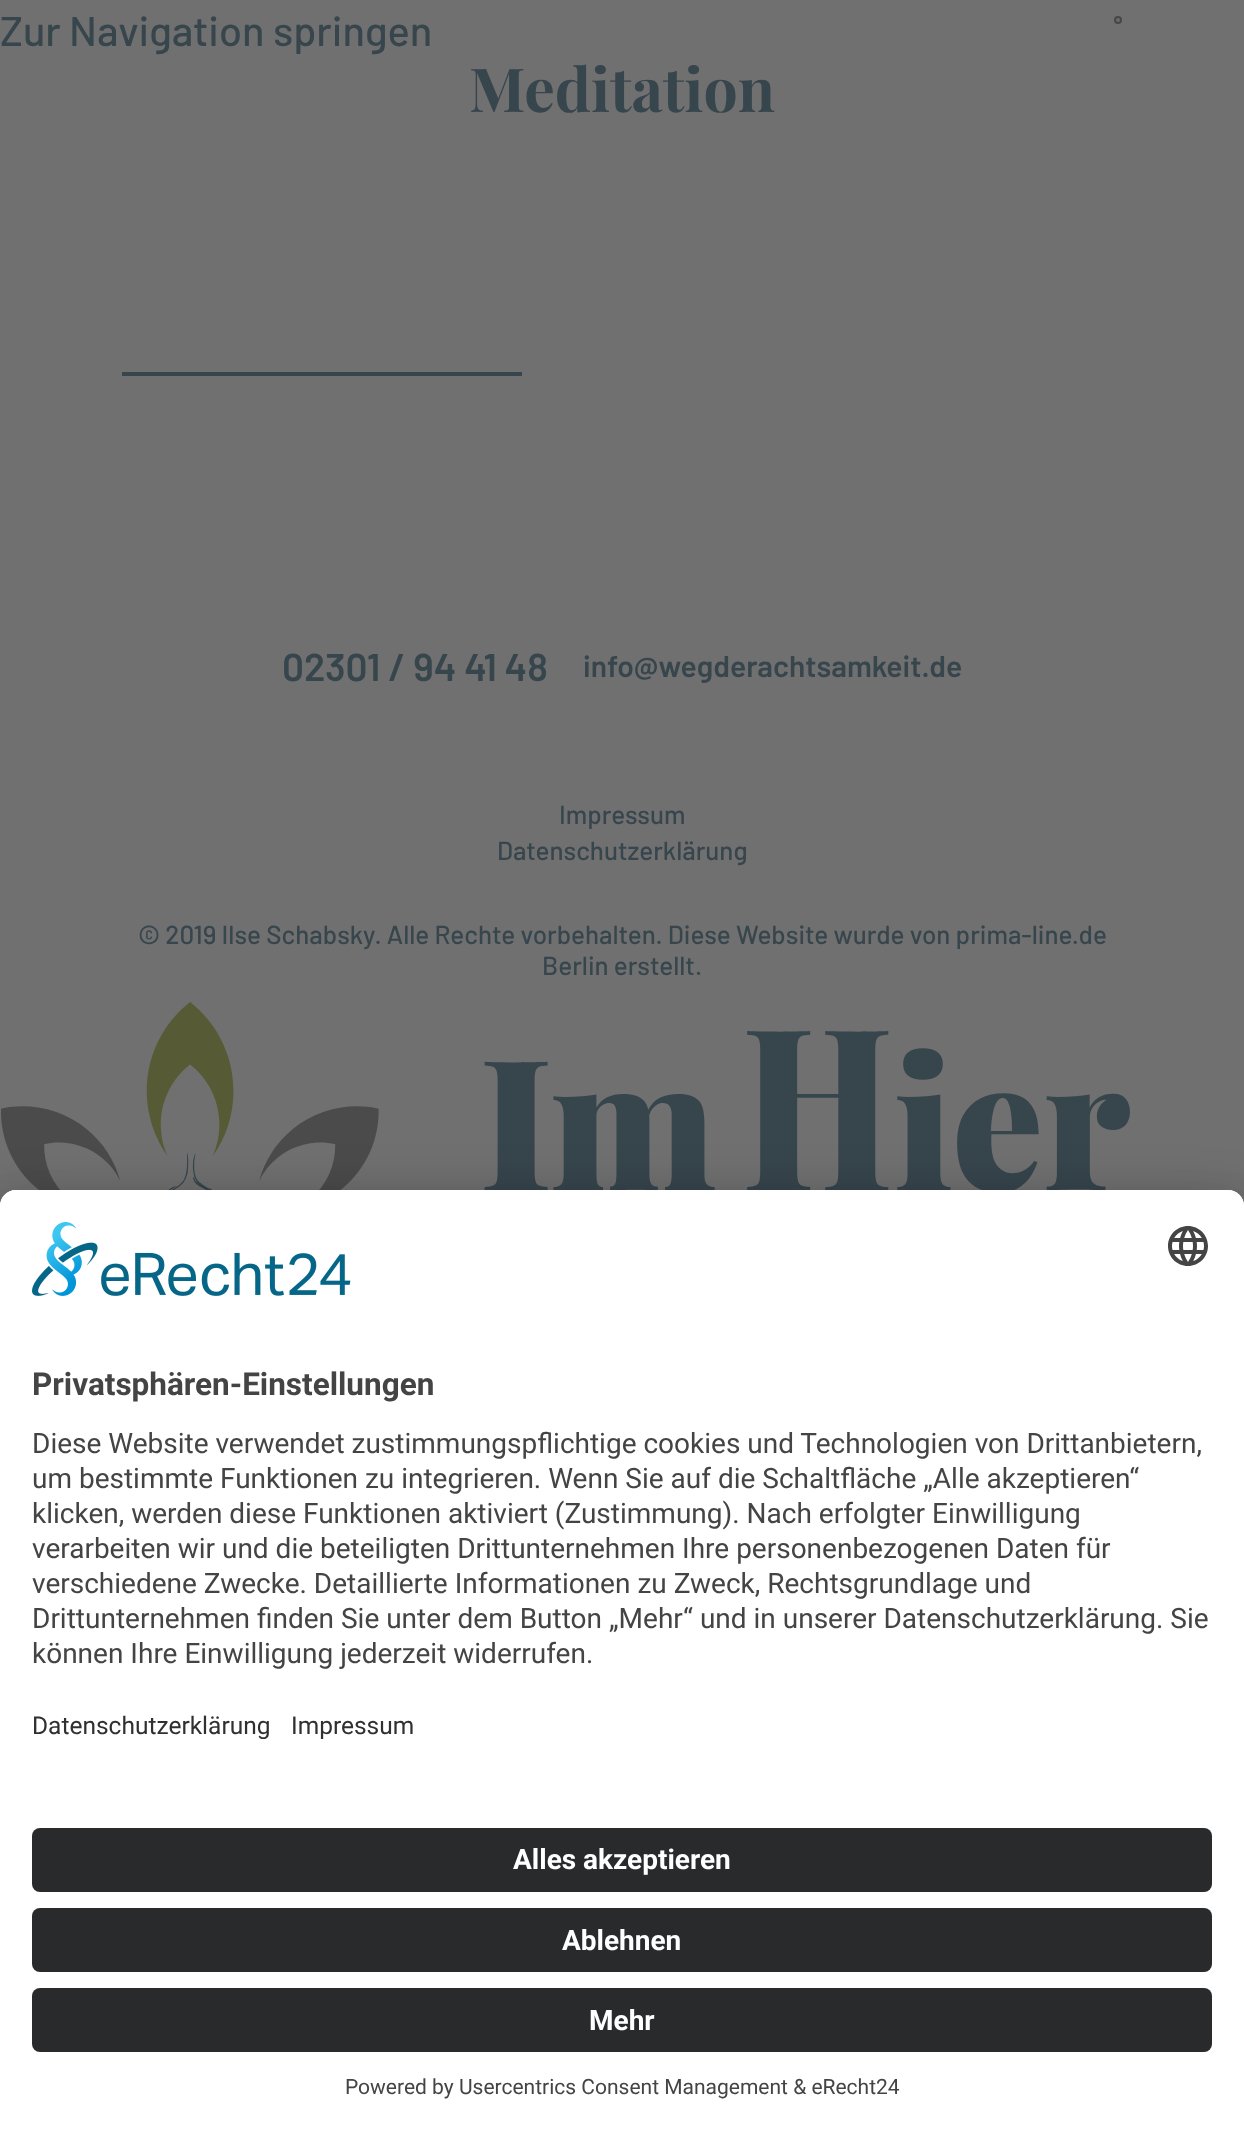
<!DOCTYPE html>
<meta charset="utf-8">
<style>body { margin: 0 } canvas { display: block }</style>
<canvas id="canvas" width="1244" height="2131"></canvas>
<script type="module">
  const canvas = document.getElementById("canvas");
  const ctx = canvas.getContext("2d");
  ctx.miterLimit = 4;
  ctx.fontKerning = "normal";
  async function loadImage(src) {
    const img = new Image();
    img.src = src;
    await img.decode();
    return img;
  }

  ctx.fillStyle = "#707070";
  ctx.fillRect(0, 0, 1244, 2131);
  ctx.font = "500 41.6px Barlow";
  ctx.fillStyle = "#37454d";
  ctx.fillText("Zur Navigation springen", 0, 46);
  ctx.fillStyle = "#6b6b6b";
  ctx.beginPath();
  ctx.arc(1118, 20, 3, 0, Math.PI * 2);
  ctx.fill();
  ctx.strokeStyle = "#474747";
  ctx.lineWidth = 2;
  ctx.stroke();
  ctx.font = "bold 60.75px Playfair Display";
  ctx.fillStyle = "#37454d";
  ctx.fillText("Meditation", 469, 112);
  ctx.fillRect(122, 372, 400, 4);
  ctx.font = "600 38.75px Barlow";
  ctx.fillText("02301 / 94 41 48", 282, 681);
  ctx.font = "600 30px Barlow";
  ctx.fillText("info@wegderachtsamkeit.de", 583, 677);
  ctx.font = "500 26px Barlow";
  ctx.fillText("Impressum", 559, 824);
  ctx.fillText("Datenschutzerklärung", 497, 860);
  ctx.fillText("© 2019 Ilse Schabsky. Alle Rechte vorbehalten. Diese Website wurde von prima-line.de", 138, 944);
  ctx.fillText("Berlin erstellt.", 542, 975);
  ctx.drawImage(await loadImage("img1.png"), 1, 1002, 1129, 188);
  ctx.fillStyle = "rgba(0, 0, 0, 0.3)";
  ctx.filter = "blur(28px)";
  ctx.beginPath();
  ctx.roundRect(0, 1230, 1244, 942, 16);
  ctx.fill();
  ctx.filter = "none";
  ctx.fillStyle = "rgba(0, 0, 0, 0.22)";
  ctx.filter = "blur(26px)";
  ctx.beginPath();
  ctx.roundRect(0, 1200, 1244, 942, 16);
  ctx.fill();
  ctx.filter = "none";
  ctx.fillStyle = "#ffffff";
  ctx.beginPath();
  ctx.moveTo(16, 1190);
  ctx.lineTo(1228, 1190);
  ctx.bezierCurveTo(1237, 1190, 1244, 1197, 1244, 1206);
  ctx.lineTo(1244, 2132);
  ctx.lineTo(0, 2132);
  ctx.lineTo(0, 1206);
  ctx.bezierCurveTo(0, 1197, 7, 1190, 16, 1190);
  ctx.closePath();
  ctx.fill();
  ctx.beginPath();
  ctx.roundRect(0, 1190, 1244, 614, [16, 16, 0, 0]);
  ctx.fill();
  ctx.drawImage(await loadImage("img2.png"), 32, 1222, 319, 74);
  ctx.drawImage(await loadImage("img3.png"), 1168, 1226, 40, 40);
  ctx.font = "bold 31.5px Roboto";
  ctx.fillStyle = "#444444";
  ctx.fillText("Privatsphären-Einstellungen", 32, 1395);
  ctx.font = "28px Roboto";
  ctx.fillText("Diese Website verwendet zustimmungspflichtige cookies und Technologien von Drittanbietern,", 32, 1453);
  ctx.fillText("um bestimmte Funktionen zu integrieren. Wenn Sie auf die Schaltfläche „Alle akzeptieren“", 32, 1488);
  ctx.fillText("klicken, werden diese Funktionen aktiviert (Zustimmung). Nach erfolgter Einwilligung", 32, 1523);
  ctx.fillText("verarbeiten wir und die beteiligten Drittunternehmen Ihre personenbezogenen Daten für", 32, 1558);
  ctx.fillText("verschiedene Zwecke. Detaillierte Informationen zu Zweck, Rechtsgrundlage und", 32, 1593);
  ctx.fillText("Drittunternehmen finden Sie unter dem Button „Mehr“ und in unserer Datenschutzerklärung. Sie", 32, 1628);
  ctx.fillText("können Ihre Einwilligung jederzeit widerrufen.", 32, 1663);
  ctx.font = "24.5px Roboto";
  ctx.fillStyle = "#303030";
  ctx.fillText("Datenschutzerklärung", 32, 1734);
  ctx.fillText("Impressum", 291, 1734);
  ctx.fillStyle = "#292a2b";
  ctx.beginPath();
  ctx.roundRect(32, 1828, 1180, 64, 8);
  ctx.fill();
  ctx.font = "bold 28px Roboto";
  ctx.fillStyle = "#ffffff";
  ctx.fillText("Alles akzeptieren", 513, 1869);
  ctx.fillStyle = "#292a2b";
  ctx.beginPath();
  ctx.roundRect(32, 1908, 1180, 64, 8);
  ctx.fill();
  ctx.fillStyle = "#ffffff";
  ctx.fillText("Ablehnen", 562, 1950);
  ctx.fillStyle = "#292a2b";
  ctx.beginPath();
  ctx.roundRect(32, 1988, 1180, 64, 8);
  ctx.fill();
  ctx.fillStyle = "#ffffff";
  ctx.fillText("Mehr", 589, 2030);
  ctx.font = "21px Roboto";
  ctx.fillStyle = "#444444";
  ctx.fillText("Powered by Usercentrics Consent Management & eRecht24", 345, 2094);
</script>
